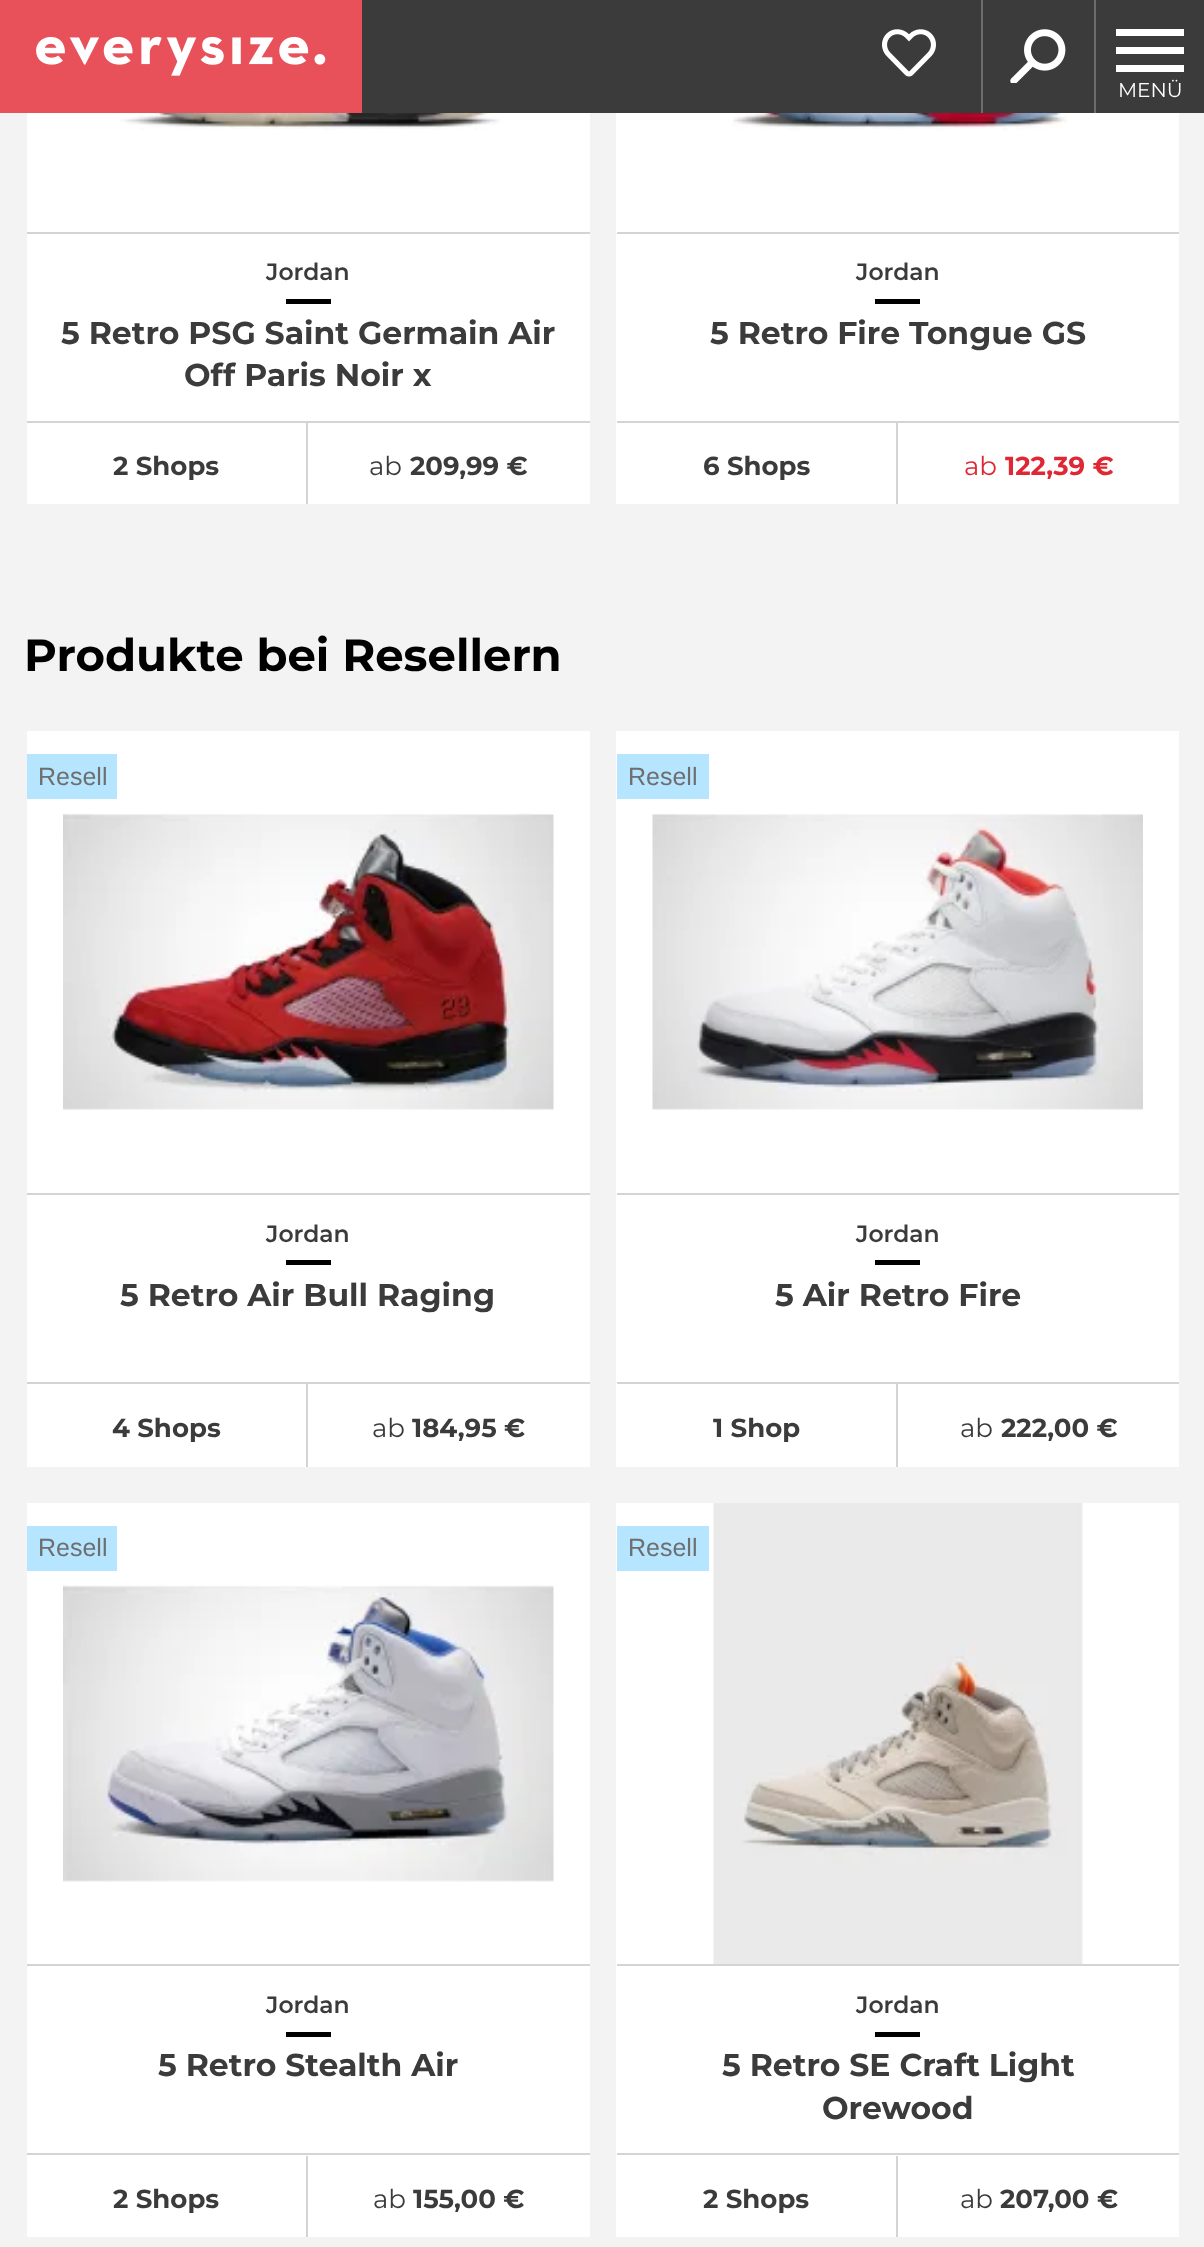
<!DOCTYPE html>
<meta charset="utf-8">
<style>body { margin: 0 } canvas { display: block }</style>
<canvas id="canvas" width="1204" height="2247"></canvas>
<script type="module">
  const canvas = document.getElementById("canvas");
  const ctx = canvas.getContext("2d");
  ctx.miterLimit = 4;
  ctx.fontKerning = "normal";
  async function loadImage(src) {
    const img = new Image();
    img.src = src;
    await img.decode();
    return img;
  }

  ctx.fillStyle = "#f3f3f3";
  ctx.fillRect(0, 0, 1204, 2247);
  ctx.fillStyle = "#3b3b3b";
  ctx.fillRect(362, 0, 842, 113);
  ctx.fillStyle = "#e85159";
  ctx.fillRect(0, 0, 362, 113);
  ctx.drawImage(await loadImage("img1.png"), 36, 36, 290, 40);
  ctx.drawImage(await loadImage("img2.png"), 882, 29, 54, 48);
  ctx.drawImage(await loadImage("img3.png"), 1010, 29, 56, 54);
  ctx.fillStyle = "#6c6c6c";
  ctx.fillRect(981, 0, 2, 113);
  ctx.fillRect(1094, 0, 2, 113);
  ctx.fillStyle = "#ffffff";
  ctx.fillRect(1116, 47, 68, 7);
  ctx.fillRect(1116, 29, 68, 7);
  ctx.fillRect(1116, 65, 68, 7);
  ctx.font = "20px Montserrat";
  ctx.fillText("MENÜ", 1118, 97);
  ctx.fillRect(27, 113, 563, 391);
  ctx.drawImage(await loadImage("img4.png"), 119, 113, 385, 17);
  ctx.fillStyle = "#d4d4d4";
  ctx.fillRect(27, 232, 563, 2);
  ctx.font = "600 23.5px Montserrat";
  ctx.fillStyle = "#3b3b3b";
  ctx.fillText("Jordan", 266, 280);
  ctx.fillStyle = "#000000";
  ctx.fillRect(286, 299, 45, 5);
  ctx.font = "bold 31.5px Montserrat";
  ctx.fillStyle = "#3b3b3b";
  ctx.fillText("5 Retro PSG Saint Germain Air", 61, 344);
  ctx.fillText("Off Paris Noir x", 184, 386);
  ctx.fillStyle = "#d4d4d4";
  ctx.fillRect(27, 421, 563, 2);
  ctx.fillRect(306, 423, 2, 81);
  ctx.font = "bold 26px Montserrat";
  ctx.fillStyle = "#3b3b3b";
  ctx.fillText("2 Shops", 113, 475);
  ctx.font = "26px Montserrat";
  ctx.fillText("ab", 369, 475);
  ctx.font = "bold 26px Montserrat";
  ctx.fillText("209,99 €", 410, 475);
  ctx.fillStyle = "#ffffff";
  ctx.fillRect(616, 113, 563, 391);
  ctx.drawImage(await loadImage("img5.png"), 732, 113, 335, 18);
  ctx.fillStyle = "#d4d4d4";
  ctx.fillRect(617, 232, 562, 2);
  ctx.font = "600 23.5px Montserrat";
  ctx.fillStyle = "#3b3b3b";
  ctx.fillText("Jordan", 856, 280);
  ctx.fillStyle = "#000000";
  ctx.fillRect(875, 299, 45, 5);
  ctx.font = "bold 31.5px Montserrat";
  ctx.fillStyle = "#3b3b3b";
  ctx.fillText("5 Retro Fire Tongue GS", 710, 344);
  ctx.fillStyle = "#d4d4d4";
  ctx.fillRect(617, 421, 562, 2);
  ctx.fillRect(896, 423, 2, 81);
  ctx.font = "bold 26px Montserrat";
  ctx.fillStyle = "#3b3b3b";
  ctx.fillText("6 Shops", 703, 475);
  ctx.font = "26px Montserrat";
  ctx.fillStyle = "#e02835";
  ctx.fillText("ab", 964, 475);
  ctx.font = "bold 26px Montserrat";
  ctx.fillText("122,39 €", 1005, 475);
  ctx.font = "bold 45px Montserrat";
  ctx.fillStyle = "#000000";
  ctx.fillText("Produkte bei Resellern", 24, 671);
  ctx.fillStyle = "#ffffff";
  ctx.fillRect(27, 731, 563, 736);
  ctx.fillStyle = "#d4d4d4";
  ctx.fillRect(27, 1382, 563, 2);
  ctx.fillStyle = "#b5e5ff";
  ctx.fillRect(27, 754, 90, 45);
  ctx.font = "25px Liberation Sans";
  ctx.fillStyle = "#6e6e6e";
  ctx.fillText("Resell", 38, 785);
  ctx.font = "26px Montserrat";
  ctx.fillStyle = "#3b3b3b";
  ctx.fillText("ab", 372, 1437);
  ctx.font = "bold 26px Montserrat";
  ctx.fillText("184,95 €", 412, 1437);
  ctx.fillStyle = "#d4d4d4";
  ctx.fillRect(306, 1384, 2, 83);
  ctx.fillStyle = "#3b3b3b";
  ctx.fillText("4 Shops", 112, 1437);
  ctx.drawImage(await loadImage("img6.png"), 63, 813, 491, 297);
  ctx.fillStyle = "#d4d4d4";
  ctx.fillRect(27, 1193, 563, 2);
  ctx.font = "600 23.5px Montserrat";
  ctx.fillStyle = "#3b3b3b";
  ctx.fillText("Jordan", 266, 1242);
  ctx.fillStyle = "#000000";
  ctx.fillRect(286, 1260, 45, 5);
  ctx.font = "bold 31.5px Montserrat";
  ctx.fillStyle = "#3b3b3b";
  ctx.fillText("5 Retro Air Bull Raging", 120, 1306);
  ctx.fillStyle = "#ffffff";
  ctx.fillRect(616, 731, 563, 736);
  ctx.fillStyle = "#d4d4d4";
  ctx.fillRect(617, 1382, 562, 2);
  ctx.fillStyle = "#b5e5ff";
  ctx.fillRect(617, 754, 92, 45);
  ctx.font = "25px Liberation Sans";
  ctx.fillStyle = "#6e6e6e";
  ctx.fillText("Resell", 628, 785);
  ctx.font = "26px Montserrat";
  ctx.fillStyle = "#3b3b3b";
  ctx.fillText("ab", 960, 1437);
  ctx.font = "bold 26px Montserrat";
  ctx.fillText("222,00 €", 1001, 1437);
  ctx.fillStyle = "#d4d4d4";
  ctx.fillRect(896, 1384, 2, 83);
  ctx.fillStyle = "#3b3b3b";
  ctx.fillText("1 Shop", 713, 1437);
  ctx.drawImage(await loadImage("img7.png"), 652, 814, 491, 296);
  ctx.fillStyle = "#d4d4d4";
  ctx.fillRect(617, 1193, 562, 2);
  ctx.font = "600 23.5px Montserrat";
  ctx.fillStyle = "#3b3b3b";
  ctx.fillText("Jordan", 856, 1242);
  ctx.fillStyle = "#000000";
  ctx.fillRect(875, 1260, 45, 5);
  ctx.font = "bold 31.5px Montserrat";
  ctx.fillStyle = "#3b3b3b";
  ctx.fillText("5 Air Retro Fire", 775, 1306);
  ctx.fillStyle = "#ffffff";
  ctx.fillRect(27, 1503, 563, 734);
  ctx.fillStyle = "#d4d4d4";
  ctx.fillRect(27, 2153, 563, 2);
  ctx.fillStyle = "#b5e5ff";
  ctx.fillRect(27, 1526, 90, 45);
  ctx.font = "25px Liberation Sans";
  ctx.fillStyle = "#6e6e6e";
  ctx.fillText("Resell", 38, 1556);
  ctx.font = "26px Montserrat";
  ctx.fillStyle = "#3b3b3b";
  ctx.fillText("ab", 373, 2208);
  ctx.font = "bold 26px Montserrat";
  ctx.fillText("155,00 €", 413, 2208);
  ctx.fillStyle = "#d4d4d4";
  ctx.fillRect(306, 2156, 2, 81);
  ctx.fillStyle = "#3b3b3b";
  ctx.fillText("2 Shops", 113, 2208);
  ctx.drawImage(await loadImage("img8.png"), 63, 1585, 491, 297);
  ctx.fillStyle = "#d4d4d4";
  ctx.fillRect(27, 1964, 563, 2);
  ctx.font = "600 23.5px Montserrat";
  ctx.fillStyle = "#3b3b3b";
  ctx.fillText("Jordan", 266, 2013);
  ctx.fillStyle = "#000000";
  ctx.fillRect(286, 2032, 45, 5);
  ctx.font = "bold 31.5px Montserrat";
  ctx.fillStyle = "#3b3b3b";
  ctx.fillText("5 Retro Stealth Air", 158, 2076);
  ctx.fillStyle = "#ffffff";
  ctx.fillRect(616, 1503, 563, 734);
  ctx.drawImage(await loadImage("img9.png"), 713, 1503, 370, 461);
  ctx.fillStyle = "#d4d4d4";
  ctx.fillRect(617, 2153, 562, 2);
  ctx.fillStyle = "#b5e5ff";
  ctx.fillRect(617, 1526, 92, 45);
  ctx.font = "25px Liberation Sans";
  ctx.fillStyle = "#6e6e6e";
  ctx.fillText("Resell", 628, 1556);
  ctx.font = "26px Montserrat";
  ctx.fillStyle = "#3b3b3b";
  ctx.fillText("ab", 960, 2208);
  ctx.font = "bold 26px Montserrat";
  ctx.fillText("207,00 €", 1000, 2208);
  ctx.fillStyle = "#d4d4d4";
  ctx.fillRect(896, 2156, 2, 81);
  ctx.fillStyle = "#3b3b3b";
  ctx.fillText("2 Shops", 703, 2208);
  ctx.fillStyle = "#d4d4d4";
  ctx.fillRect(617, 1964, 562, 2);
  ctx.font = "600 23.5px Montserrat";
  ctx.fillStyle = "#3b3b3b";
  ctx.fillText("Jordan", 856, 2013);
  ctx.fillStyle = "#000000";
  ctx.fillRect(875, 2032, 45, 5);
  ctx.font = "bold 31.5px Montserrat";
  ctx.fillStyle = "#3b3b3b";
  ctx.fillText("5 Retro SE Craft Light", 722, 2076);
  ctx.fillText("Orewood", 822, 2119);
</script>
